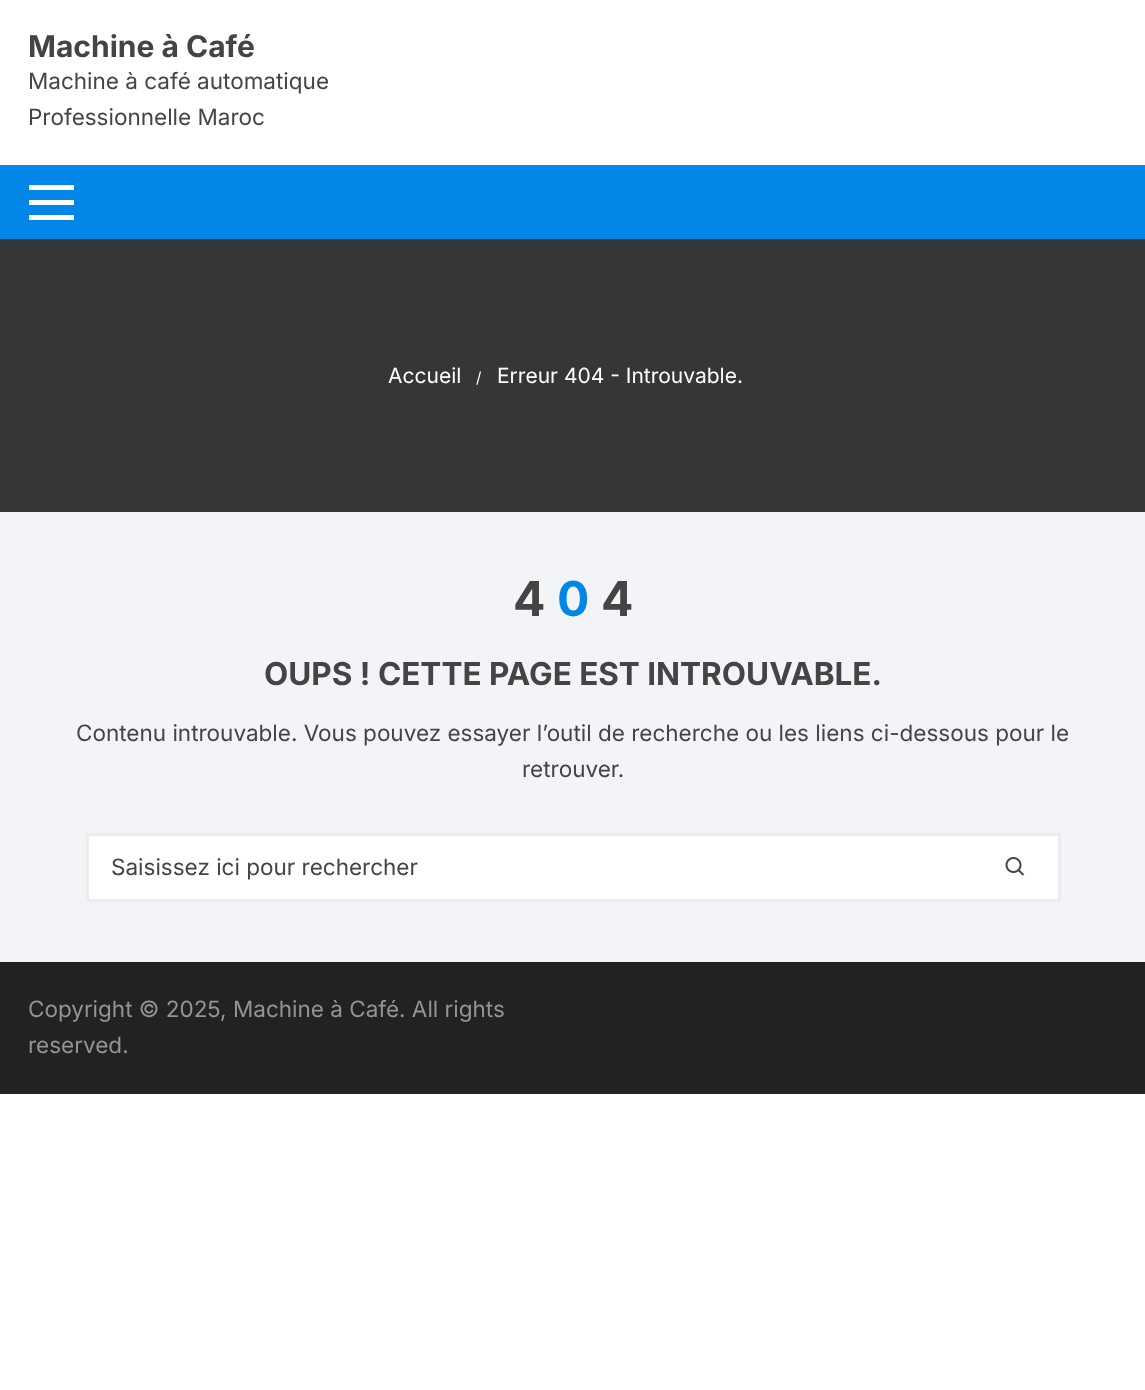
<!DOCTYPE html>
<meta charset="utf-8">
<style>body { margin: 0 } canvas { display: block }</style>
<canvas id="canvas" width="1145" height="1390"></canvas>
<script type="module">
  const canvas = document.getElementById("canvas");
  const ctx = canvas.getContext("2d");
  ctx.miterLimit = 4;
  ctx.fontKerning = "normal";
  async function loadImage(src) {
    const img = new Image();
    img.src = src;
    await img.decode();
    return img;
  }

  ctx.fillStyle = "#ffffff";
  ctx.fillRect(0, 0, 1145, 1390);
  ctx.fillStyle = "#f3f4f8";
  ctx.fillRect(0, 512, 1145, 450);
  ctx.font = "bold 30px Inter";
  ctx.fillStyle = "#444444";
  ctx.fillText("Machine à Café", 28, 57);
  ctx.font = "22.5px Inter";
  ctx.fillText("Machine à café automatique", 28, 89);
  ctx.fillText("Professionnelle Maroc", 28, 125);
  ctx.fillStyle = "#0286e7";
  ctx.fillRect(0, 165, 1145, 74);
  ctx.fillStyle = "#ffffff";
  ctx.fillRect(29, 185, 45, 5);
  ctx.fillRect(29, 200, 45, 5);
  ctx.fillRect(29, 215, 45, 5);
  ctx.fillStyle = "#363636";
  ctx.fillRect(0, 239, 1145, 273);
  ctx.font = "21px Inter";
  ctx.fillStyle = "#ffffff";
  ctx.fillText("Accueil", 388, 383);
  ctx.font = "15px Inter";
  ctx.fillText("/", 476, 383);
  ctx.font = "21px Inter";
  ctx.fillText("Erreur 404 - Introuvable.", 497, 383);
  ctx.font = "bold 48px Inter";
  ctx.fillStyle = "#444444";
  ctx.fillText("4", 513, 616);
  ctx.fillStyle = "#0286e7";
  ctx.fillText("0", 557, 616);
  ctx.fillStyle = "#444444";
  ctx.fillText("4", 601, 616);
  ctx.font = "bold 31.5px Inter";
  ctx.fillText("OUPS ! CETTE PAGE EST INTROUVABLE.", 264, 685);
  ctx.font = "22.5px Inter";
  ctx.fillText("Contenu introuvable. Vous pouvez essayer l’outil de recherche ou les liens ci-dessous pour le", 76, 741);
  ctx.fillText("retrouver.", 522, 777);
  ctx.fillStyle = "#ffffff";
  ctx.beginPath();
  ctx.rect(87.5, 834.5, 972, 66);
  ctx.fill();
  ctx.strokeStyle = "#ececec";
  ctx.lineWidth = 3;
  ctx.stroke();
  ctx.fillStyle = "#444444";
  ctx.fillText("Saisissez ici pour rechercher", 111, 875);
  ctx.drawImage(await loadImage("img1.png"), 1005, 857, 20, 19);
  ctx.fillStyle = "#222222";
  ctx.fillRect(0, 962, 1145, 132);
  ctx.fillStyle = "#949494";
  ctx.fillText("Copyright © 2025, Machine à Café. All rights", 28, 1017);
  ctx.fillText("reserved.", 28, 1053);
</script>
